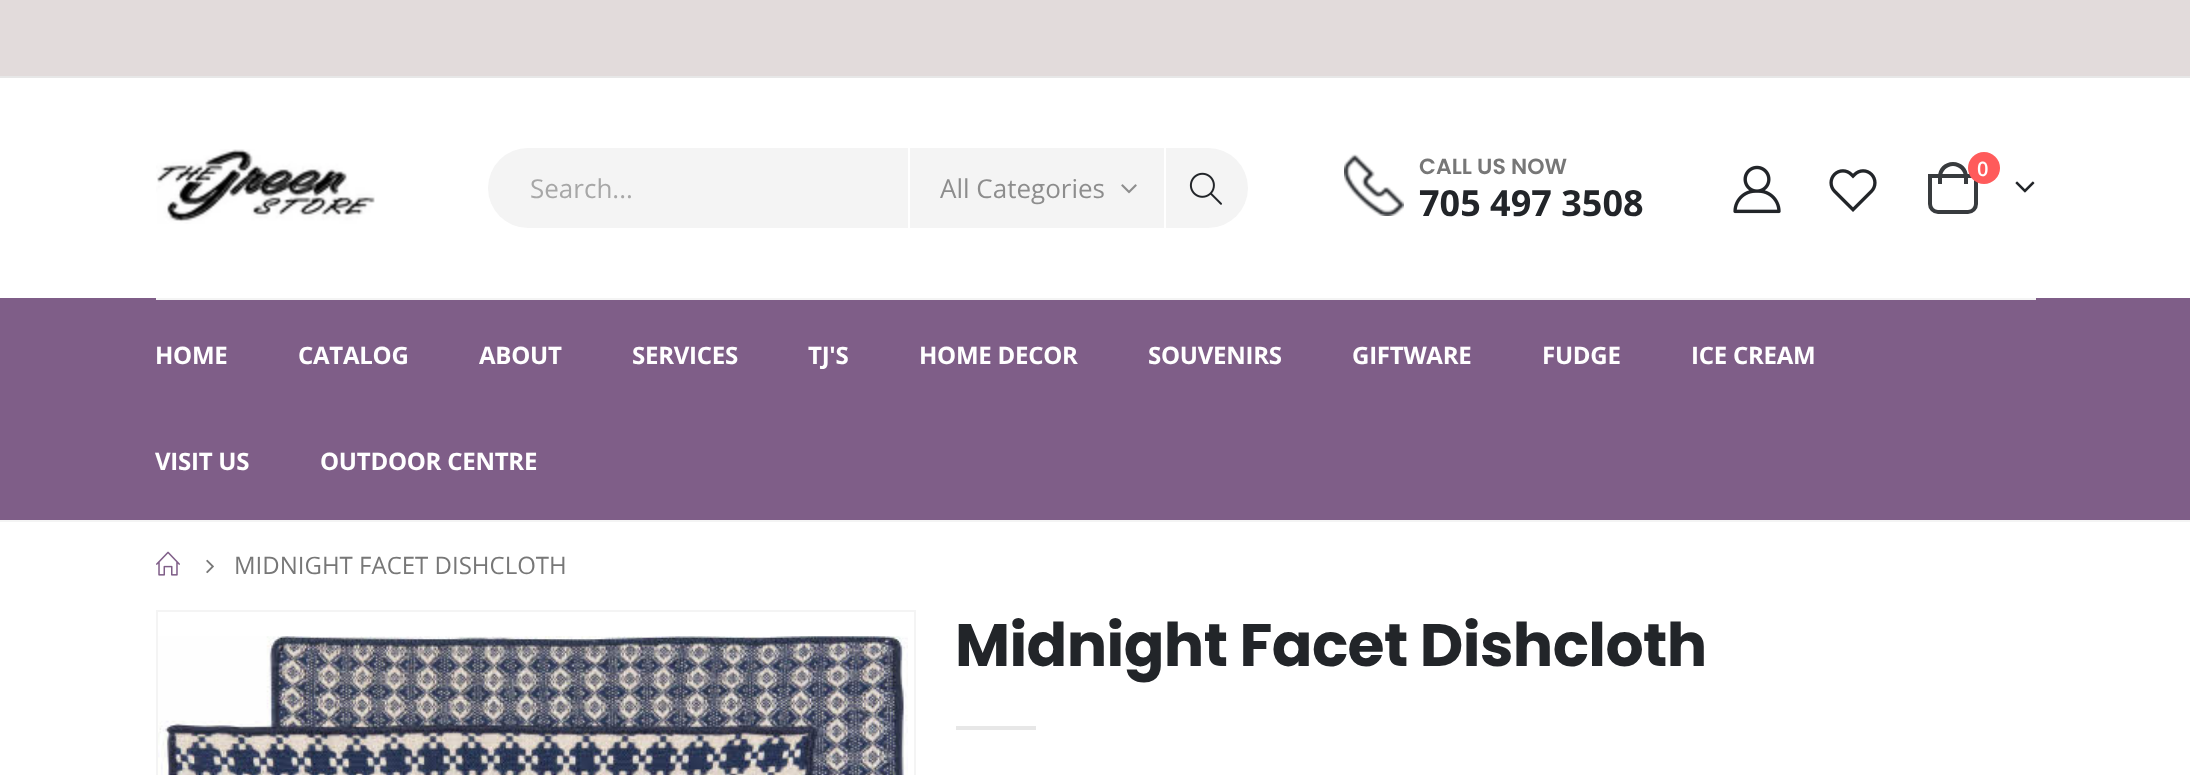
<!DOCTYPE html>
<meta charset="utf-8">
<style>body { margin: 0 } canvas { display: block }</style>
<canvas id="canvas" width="2190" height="775"></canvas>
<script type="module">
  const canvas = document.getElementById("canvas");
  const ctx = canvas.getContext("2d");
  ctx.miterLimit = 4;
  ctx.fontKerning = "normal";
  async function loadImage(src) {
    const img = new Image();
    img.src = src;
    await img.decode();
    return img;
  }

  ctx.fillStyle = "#ffffff";
  ctx.fillRect(0, 0, 2190, 775);
  ctx.fillStyle = "#e2dbdb";
  ctx.fillRect(0, 0, 2190, 76);
  ctx.fillStyle = "#f4f4f4";
  ctx.fillRect(0, 520, 2190, 2);
  ctx.fillStyle = "#e7e7e7";
  ctx.fillRect(0, 76, 2190, 2);
  ctx.drawImage(await loadImage("img1.png"), 156, 149, 219, 75);
  ctx.fillStyle = "#f4f4f4";
  ctx.beginPath();
  ctx.roundRect(488, 148, 760, 80, 40);
  ctx.fill();
  ctx.font = "26px Open Sans";
  ctx.fillStyle = "#a7a7a7";
  ctx.fillText("Search...", 530, 198);
  ctx.fillStyle = "#ffffff";
  ctx.fillRect(1164, 148, 2, 80);
  ctx.fillRect(908, 148, 2, 80);
  ctx.fillStyle = "#8d8d8d";
  ctx.fillText("All Categories", 940, 198);
  ctx.drawImage(await loadImage("img2.png"), 1121, 184, 16, 10);
  ctx.drawImage(await loadImage("img3.png"), 1189, 172, 33, 33);
  ctx.drawImage(await loadImage("img4.png"), 1344, 154, 60, 62);
  ctx.font = "600 22px Poppins";
  ctx.fillStyle = "#777777";
  ctx.fillText("CALL US NOW", 1419, 174);
  ctx.font = "bold 36px Open Sans";
  ctx.fillStyle = "#222529";
  ctx.fillText("705 497 3508", 1419, 216);
  ctx.drawImage(await loadImage("img5.png"), 1733, 165, 48, 49);
  ctx.drawImage(await loadImage("img6.png"), 1829, 169, 48, 43);
  ctx.beginPath();
  ctx.roundRect(1930, 176, 46, 36, [0, 0, 8, 8]);
  ctx.strokeStyle = "#383b3e";
  ctx.lineWidth = 4;
  ctx.stroke();
  ctx.fillStyle = "#383b3e";
  ctx.beginPath();
  ctx.moveTo(1953, 162);
  ctx.bezierCurveTo(1961.5, 162, 1968, 168.5, 1968, 177);
  ctx.lineTo(1968, 184);
  ctx.lineTo(1938, 184);
  ctx.lineTo(1938, 177);
  ctx.bezierCurveTo(1938, 168.5, 1944.5, 162, 1953, 162);
  ctx.closePath();
  ctx.moveTo(1953, 166);
  ctx.bezierCurveTo(1959, 166, 1964, 171, 1964, 177);
  ctx.lineTo(1964, 184);
  ctx.lineTo(1942, 184);
  ctx.lineTo(1942, 177);
  ctx.bezierCurveTo(1942, 171, 1947, 166, 1953, 166);
  ctx.closePath();
  ctx.fill("evenodd");
  ctx.fillStyle = "#ff5b5b";
  ctx.beginPath();
  ctx.arc(1984, 168, 16, 0, Math.PI * 2);
  ctx.fill();
  ctx.font = "600 20px Open Sans";
  ctx.fillStyle = "#ffffff";
  ctx.fillText("0", 1977, 176);
  ctx.drawImage(await loadImage("img7.png"), 2015, 181, 20, 12);
  ctx.fillStyle = "#7f5e88";
  ctx.fillRect(0, 298, 2190, 222);
  ctx.fillStyle = "#f4f4f4";
  ctx.fillRect(156, 298, 1880, 2);
  ctx.letterSpacing = "-0.25px";
  ctx.font = "bold 24px Open Sans";
  ctx.fillStyle = "#ffffff";
  ctx.fillText("HOME", 155, 364);
  ctx.fillText("CATALOG", 298, 364);
  ctx.fillText("ABOUT", 479, 364);
  ctx.fillText("SERVICES", 632, 364);
  ctx.fillText("TJ'S", 808, 364);
  ctx.fillText("HOME DECOR", 919, 364);
  ctx.fillText("SOUVENIRS", 1148, 364);
  ctx.fillText("GIFTWARE", 1352, 364);
  ctx.fillText("FUDGE", 1542, 364);
  ctx.fillText("ICE CREAM", 1691, 364);
  ctx.fillText("VISIT US", 155, 470);
  ctx.fillText("OUTDOOR CENTRE", 320, 470);
  ctx.drawImage(await loadImage("img8.png"), 156, 551, 24, 25);
  ctx.drawImage(await loadImage("img9.png"), 206, 559, 8, 15);
  ctx.letterSpacing = "0px";
  ctx.font = "24px Open Sans";
  ctx.fillStyle = "#777777";
  ctx.fillText("MIDNIGHT FACET DISHCLOTH", 234, 574);
  ctx.strokeStyle = "#f4f4f4";
  ctx.lineWidth = 2;
  ctx.strokeRect(157, 611, 758, 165);
  ctx.drawImage(await loadImage("img10.png"), 158, 636, 750, 139);
  ctx.letterSpacing = "-0.6px";
  ctx.font = "bold 60px Poppins";
  ctx.fillStyle = "#222529";
  ctx.fillText("Midnight Facet Dishcloth", 955, 666);
  ctx.fillStyle = "#e7e7e7";
  ctx.fillRect(956, 726, 80, 4);
</script>
